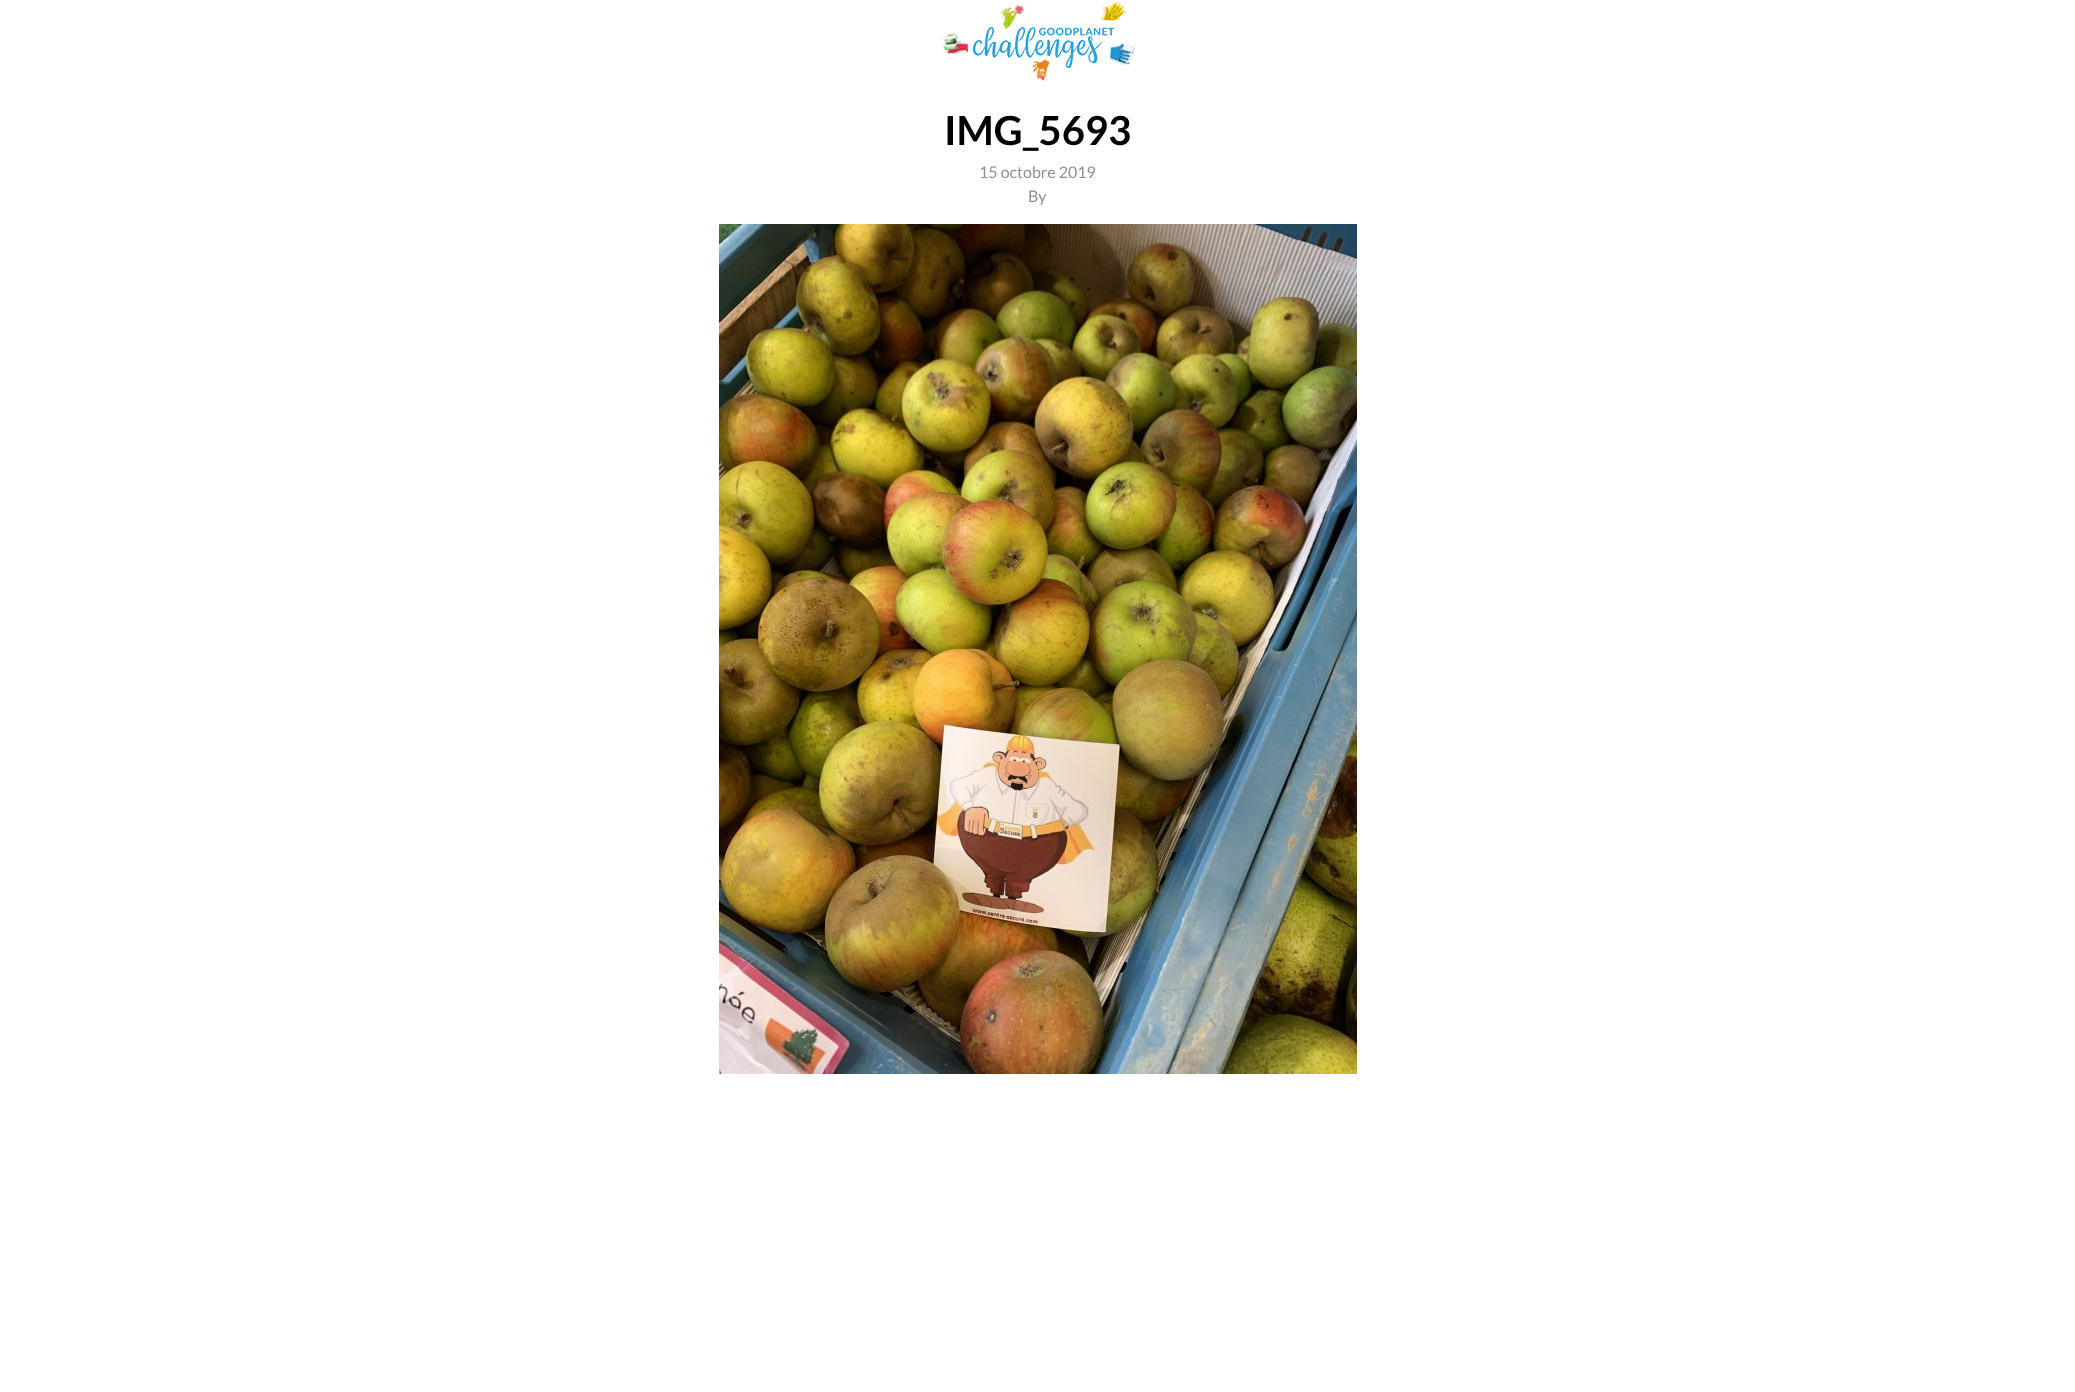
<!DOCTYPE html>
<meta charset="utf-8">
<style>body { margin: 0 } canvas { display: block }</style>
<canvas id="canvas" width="2075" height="1392"></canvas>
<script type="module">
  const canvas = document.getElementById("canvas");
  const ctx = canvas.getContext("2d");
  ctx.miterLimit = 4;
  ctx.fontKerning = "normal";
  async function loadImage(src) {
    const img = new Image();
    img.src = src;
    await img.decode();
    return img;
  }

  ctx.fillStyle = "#ffffff";
  ctx.fillRect(0, 0, 2075, 1392);
  ctx.drawImage(await loadImage("img1.png"), 943, 2, 192, 80);
  ctx.font = "bold 40px Lato";
  ctx.fillStyle = "#000000";
  ctx.fillText("IMG_5693", 944, 145);
  ctx.font = "16px Lato";
  ctx.fillStyle = "#909090";
  ctx.fillText("15 octobre 2019", 979, 178);
  ctx.fillText("By", 1028, 202);
  ctx.drawImage(await loadImage("img2.png"), 719, 224, 638, 850);
</script>
